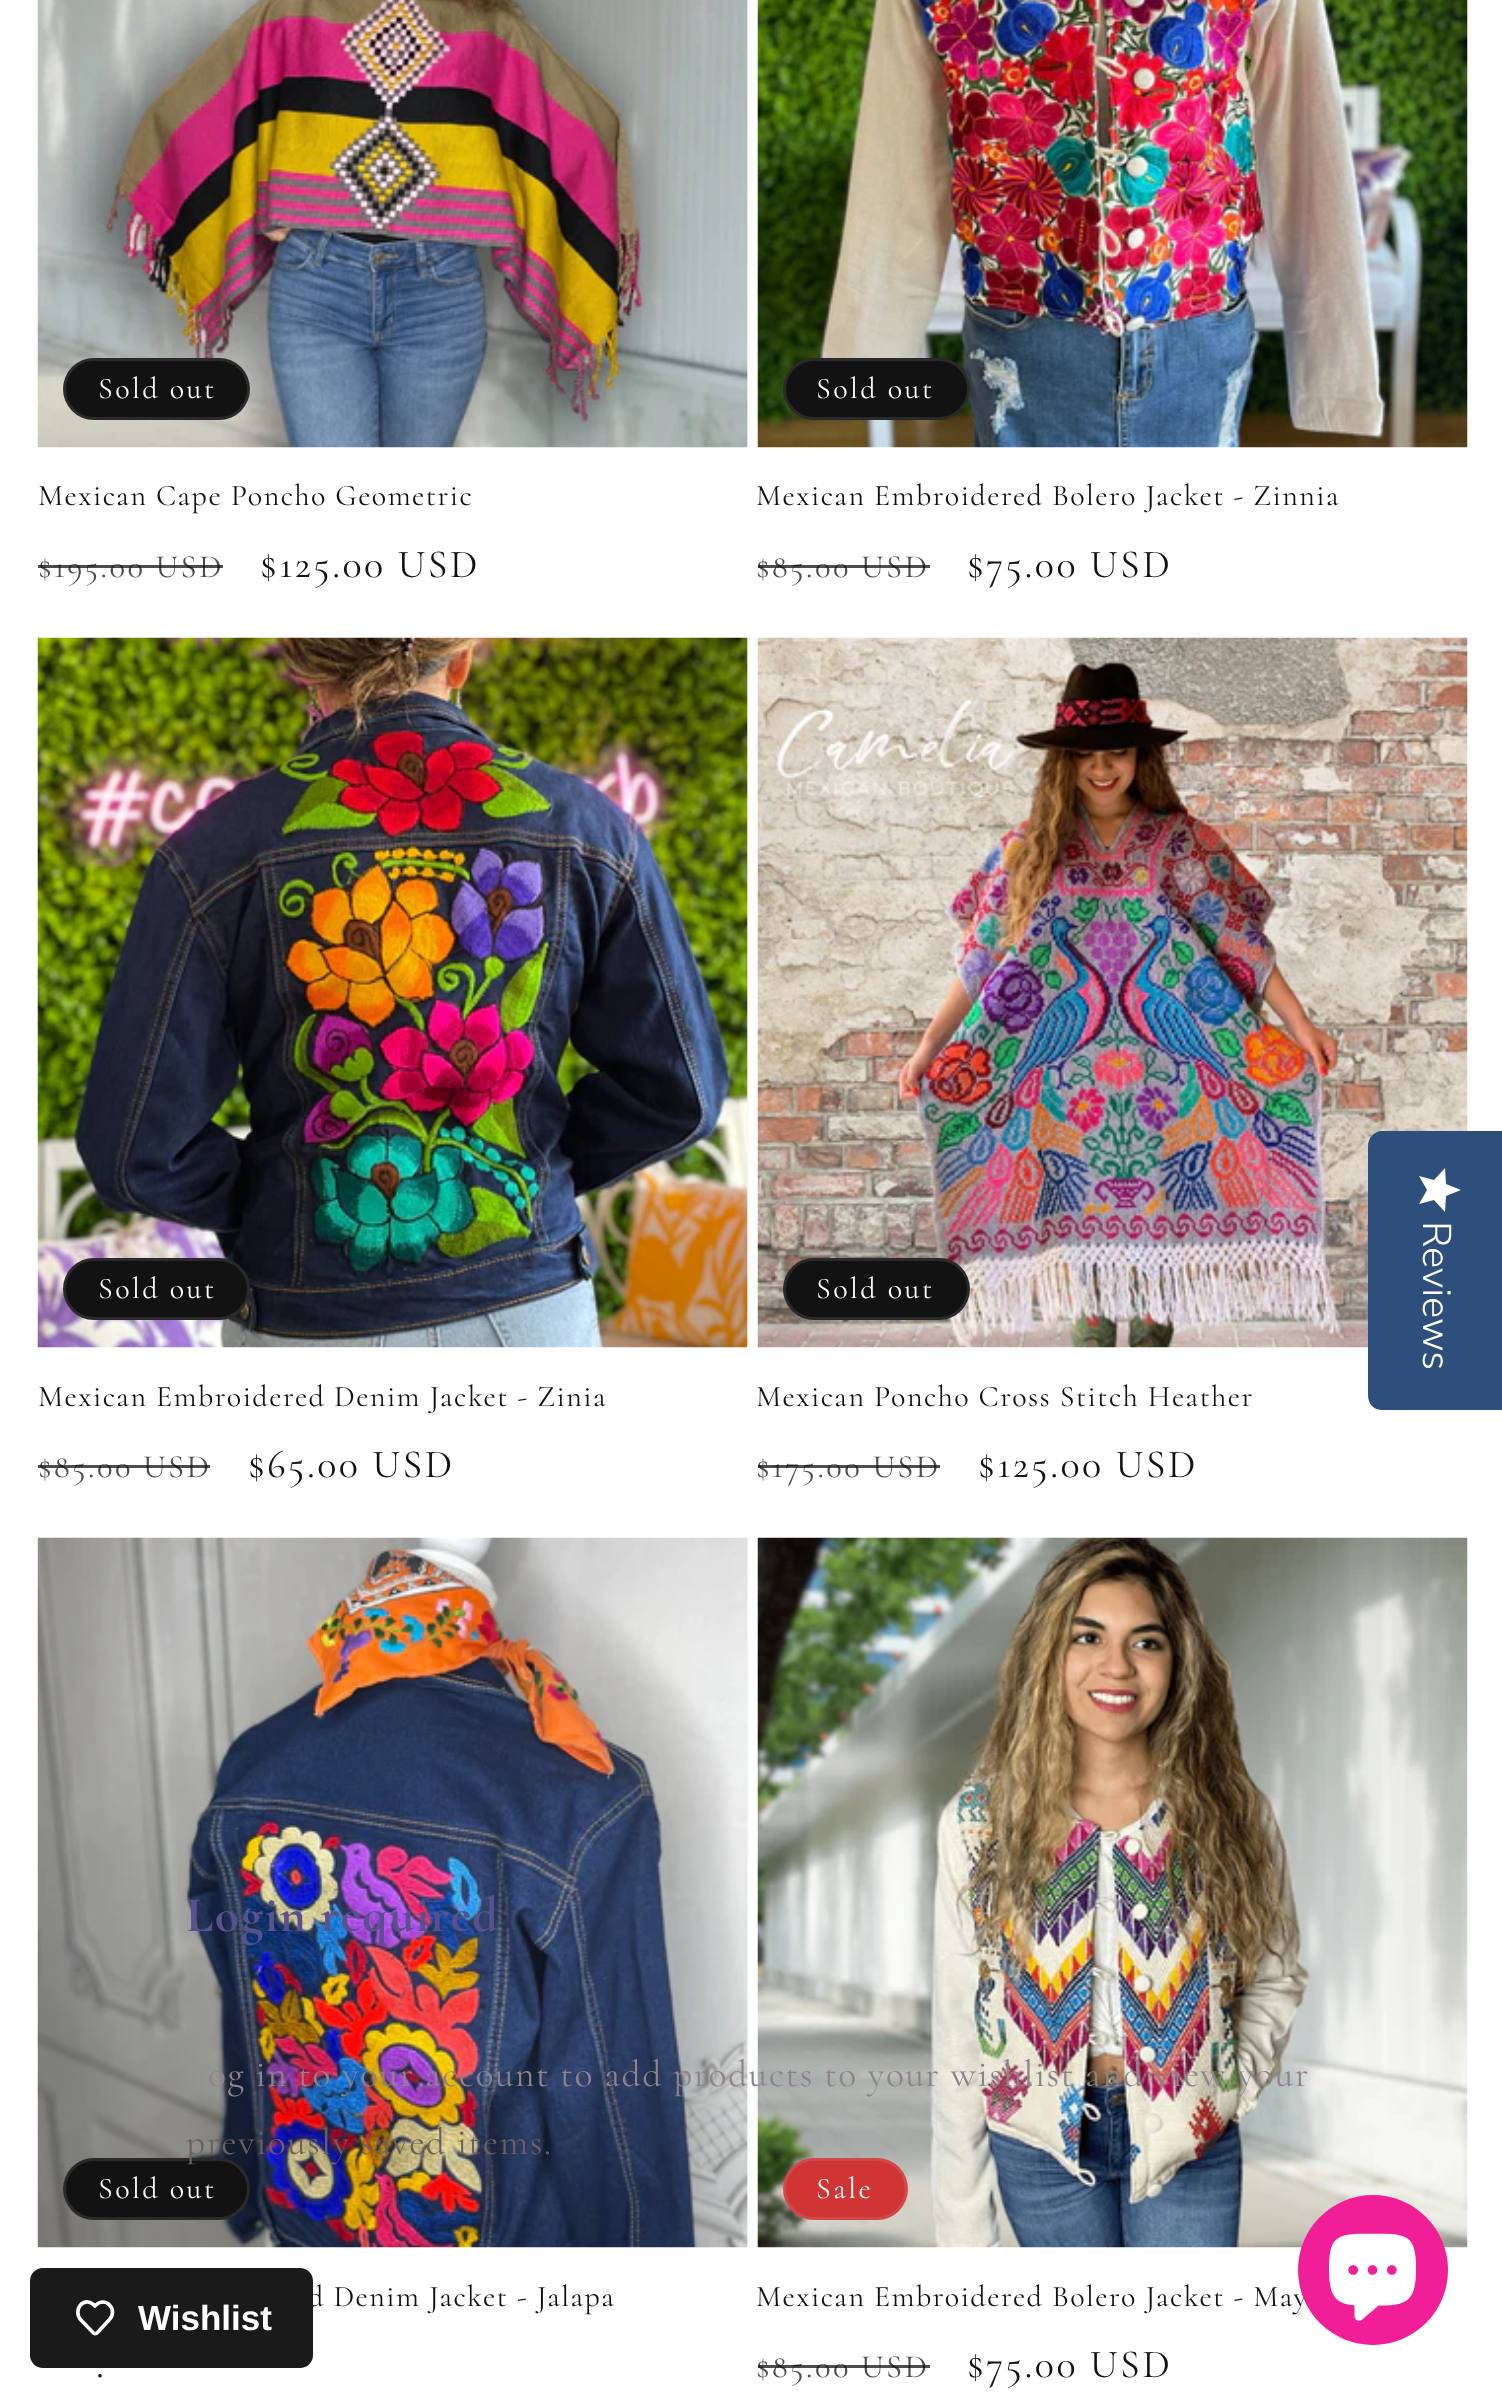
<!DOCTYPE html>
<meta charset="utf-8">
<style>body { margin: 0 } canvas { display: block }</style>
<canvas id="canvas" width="1502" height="2397"></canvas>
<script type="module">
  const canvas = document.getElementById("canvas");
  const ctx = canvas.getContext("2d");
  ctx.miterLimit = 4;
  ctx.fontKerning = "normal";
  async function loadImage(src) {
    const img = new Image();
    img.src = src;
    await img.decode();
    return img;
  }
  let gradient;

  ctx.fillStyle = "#ffffff";
  ctx.fillRect(0, 0, 1502, 2397);
  ctx.fillStyle = "#f3f3f3";
  ctx.fillRect(747, 0, 1, 445);
  ctx.drawImage(await loadImage("img1.png"), 37, 0, 711, 448);
  ctx.fillStyle = "#121212";
  ctx.beginPath();
  ctx.roundRect(63, 358, 187, 62, 31);
  ctx.fill();
  ctx.beginPath();
  ctx.roundRect(64.5, 359.5, 184, 59, 29.5);
  ctx.strokeStyle = "rgba(255, 255, 255, 0.1)";
  ctx.lineWidth = 3;
  ctx.stroke();
  ctx.letterSpacing = "2.5px";
  ctx.font = "30px Cormorant";
  ctx.fillStyle = "#ffffff";
  ctx.fillText("Sold out", 98, 398);
  ctx.letterSpacing = "1.5px";
  ctx.fillStyle = "#121212";
  ctx.fillText("Mexican Cape Poncho Geometric", 38, 505);
  ctx.letterSpacing = "2.5px";
  ctx.font = "32.5px Cormorant";
  ctx.fillStyle = "#4d4d4d";
  ctx.fillText("$195.00 USD", 38, 577);
  ctx.fillStyle = "rgba(18, 18, 18, 0.75)";
  ctx.fillRect(38, 565, 185, 3);
  ctx.font = "40px Cormorant";
  ctx.fillStyle = "#121212";
  ctx.fillText("$125.00 USD", 260, 577);
  ctx.drawImage(await loadImage("img2.png"), 757, 0, 711, 448);
  ctx.beginPath();
  ctx.roundRect(783, 358, 187, 62, 31);
  ctx.fill();
  ctx.beginPath();
  ctx.roundRect(784.5, 359.5, 184, 59, 29.5);
  ctx.stroke();
  ctx.font = "30px Cormorant";
  ctx.fillStyle = "#ffffff";
  ctx.fillText("Sold out", 816, 398);
  ctx.letterSpacing = "1.5px";
  ctx.fillStyle = "#121212";
  ctx.fillText("Mexican Embroidered Bolero Jacket - Zinnia", 756, 505);
  ctx.letterSpacing = "2.5px";
  ctx.font = "32.5px Cormorant";
  ctx.fillStyle = "#4d4d4d";
  ctx.fillText("$85.00 USD", 756, 577);
  ctx.fillStyle = "rgba(18, 18, 18, 0.75)";
  ctx.fillRect(758, 565, 172, 3);
  ctx.font = "40px Cormorant";
  ctx.fillStyle = "#121212";
  ctx.fillText("$75.00 USD", 967, 577);
  ctx.fillStyle = "#f3f3f3";
  ctx.fillRect(747, 638, 1, 707);
  ctx.drawImage(await loadImage("img3.png"), 37, 637, 711, 711);
  ctx.fillStyle = "#121212";
  ctx.beginPath();
  ctx.roundRect(63, 1258, 187, 62, 31);
  ctx.fill();
  ctx.beginPath();
  ctx.roundRect(64.5, 1259.5, 184, 59, 29.5);
  ctx.stroke();
  ctx.font = "30px Cormorant";
  ctx.fillStyle = "#ffffff";
  ctx.fillText("Sold out", 98, 1298);
  ctx.letterSpacing = "1.5px";
  ctx.fillStyle = "#121212";
  ctx.fillText("Mexican Embroidered Denim Jacket - Zinia", 38, 1406);
  ctx.letterSpacing = "2.5px";
  ctx.font = "32.5px Cormorant";
  ctx.fillStyle = "#4d4d4d";
  ctx.fillText("$85.00 USD", 38, 1477);
  ctx.fillStyle = "rgba(18, 18, 18, 0.75)";
  ctx.fillRect(38, 1465, 172, 3);
  ctx.font = "40px Cormorant";
  ctx.fillStyle = "#121212";
  ctx.fillText("$65.00 USD", 248, 1477);
  ctx.drawImage(await loadImage("img4.png"), 757, 637, 711, 711);
  ctx.beginPath();
  ctx.roundRect(783, 1258, 187, 62, 31);
  ctx.fill();
  ctx.beginPath();
  ctx.roundRect(784.5, 1259.5, 184, 59, 29.5);
  ctx.stroke();
  ctx.font = "30px Cormorant";
  ctx.fillStyle = "#ffffff";
  ctx.fillText("Sold out", 816, 1298);
  ctx.letterSpacing = "1.5px";
  ctx.fillStyle = "#121212";
  ctx.fillText("Mexican Poncho Cross Stitch Heather", 756, 1406);
  ctx.letterSpacing = "2.5px";
  ctx.font = "32.5px Cormorant";
  ctx.fillStyle = "#4d4d4d";
  ctx.fillText("$175.00 USD", 756, 1477);
  ctx.fillStyle = "rgba(18, 18, 18, 0.75)";
  ctx.fillRect(758, 1465, 182, 3);
  ctx.font = "40px Cormorant";
  ctx.fillStyle = "#121212";
  ctx.fillText("$125.00 USD", 978, 1477);
  ctx.fillStyle = "#f3f3f3";
  ctx.fillRect(747, 1538, 1, 707);
  ctx.drawImage(await loadImage("img5.png"), 37, 1537, 711, 711);
  ctx.fillStyle = "#121212";
  ctx.beginPath();
  ctx.roundRect(63, 2158, 187, 62, 31);
  ctx.fill();
  ctx.beginPath();
  ctx.roundRect(64.5, 2159.5, 184, 59, 29.5);
  ctx.stroke();
  ctx.font = "30px Cormorant";
  ctx.fillStyle = "#ffffff";
  ctx.fillText("Sold out", 98, 2198);
  ctx.letterSpacing = "1.5px";
  ctx.fillStyle = "#121212";
  ctx.fillText("d Denim Jacket - Jalapa", 308, 2306);
  ctx.letterSpacing = "2.5px";
  ctx.font = "40px Cormorant";
  ctx.fillText(".", 96, 2377);
  ctx.drawImage(await loadImage("img6.png"), 757, 1537, 711, 711);
  ctx.fillStyle = "#cf3535";
  ctx.beginPath();
  ctx.roundRect(783, 2158, 125, 62, 31);
  ctx.fill();
  ctx.beginPath();
  ctx.roundRect(784.5, 2159.5, 122, 59, 29.5);
  ctx.stroke();
  ctx.font = "30px Cormorant";
  ctx.fillStyle = "#ffffff";
  ctx.fillText("Sale", 816, 2198);
  ctx.letterSpacing = "1.5px";
  ctx.fillStyle = "#121212";
  ctx.fillText("Mexican Embroidered Bolero Jacket - May", 756, 2306);
  ctx.letterSpacing = "2.5px";
  ctx.font = "32.5px Cormorant";
  ctx.fillStyle = "#4d4d4d";
  ctx.fillText("$85.00 USD", 756, 2377);
  ctx.fillStyle = "rgba(18, 18, 18, 0.75)";
  ctx.fillRect(758, 2365, 172, 3);
  ctx.font = "40px Cormorant";
  ctx.fillStyle = "#121212";
  ctx.fillText("$75.00 USD", 967, 2377);
  ctx.fillStyle = "#2e4f7c";
  ctx.beginPath();
  ctx.moveTo(1502, 1131);
  ctx.lineTo(1502, 1410);
  ctx.lineTo(1382, 1410);
  ctx.bezierCurveTo(1374, 1410, 1368, 1404, 1368, 1395);
  ctx.lineTo(1368, 1146);
  ctx.bezierCurveTo(1368, 1138, 1374, 1131, 1382, 1131);
  ctx.closePath();
  ctx.fill();
  gradient = ctx.createLinearGradient(1461, 1168, 1461, 1213);
  gradient.addColorStop(1, "#ffffff");
  gradient.addColorStop(1, "#eaeaea");
  ctx.fillStyle = gradient;
  ctx.beginPath();
  ctx.moveTo(1427, 1190);
  ctx.lineTo(1419, 1204);
  ctx.lineTo(1434, 1200);
  ctx.lineTo(1445, 1212);
  ctx.lineTo(1446, 1196);
  ctx.lineTo(1461, 1190);
  ctx.lineTo(1446, 1184);
  ctx.lineTo(1445, 1168);
  ctx.lineTo(1434, 1180);
  ctx.lineTo(1419, 1176);
  ctx.closePath();
  ctx.fill();
  ctx.letterSpacing = "0px";
  ctx.font = "300 40px Nunito Sans";
  ctx.fillStyle = "#ffffff";
  ctx.save();
  ctx.translate(1423, 1221);
  ctx.rotate(90 * Math.PI / 180);
  ctx.fillText("Reviews", 0, 0);
  ctx.restore();
  ctx.letterSpacing = "1.5px";
  ctx.font = "bold 50px Cormorant";
  ctx.fillStyle = "#58518d";
  ctx.fillText("Login required", 186, 1931);
  ctx.font = "37.5px Cormorant";
  ctx.fillStyle = "#8d838d";
  ctx.fillText("og in to your account to add products to your wishlist and view your", 208, 2086);
  ctx.fillStyle = "#6b6061";
  ctx.fillText("previously saved items.", 186, 2154);
  ctx.fillStyle = "#1a1a1a";
  ctx.beginPath();
  ctx.roundRect(30, 2268, 283, 100, 13);
  ctx.fill();
  ctx.beginPath();
  ctx.moveTo(80.5, 2305);
  ctx.bezierCurveTo(85, 2300, 91, 2301.5, 95, 2306);
  ctx.lineTo(96, 2305);
  ctx.bezierCurveTo(100, 2301, 106, 2301, 109.5, 2305);
  ctx.bezierCurveTo(113.5, 2309, 113.5, 2315.5, 109.5, 2319.5);
  ctx.lineTo(97.5, 2332.5);
  ctx.bezierCurveTo(96, 2334, 94, 2334, 93, 2332.5);
  ctx.lineTo(80.5, 2319.5);
  ctx.bezierCurveTo(77, 2315.5, 77, 2309, 80.5, 2305);
  ctx.closePath();
  ctx.strokeStyle = "#ffffff";
  ctx.lineWidth = 3.6;
  ctx.lineCap = "round";
  ctx.lineJoin = "round";
  ctx.stroke();
  ctx.letterSpacing = "0px";
  ctx.font = "bold 35px Liberation Sans";
  ctx.fillStyle = "#ffffff";
  ctx.fillText("Wishlist", 138, 2330);
  ctx.fillStyle = "#f01f97";
  ctx.beginPath();
  ctx.arc(1373, 2270, 75, 0, Math.PI * 2);
  ctx.fill();
  ctx.drawImage(await loadImage("img7.png"), 1329, 2233, 87, 88);
</script>
